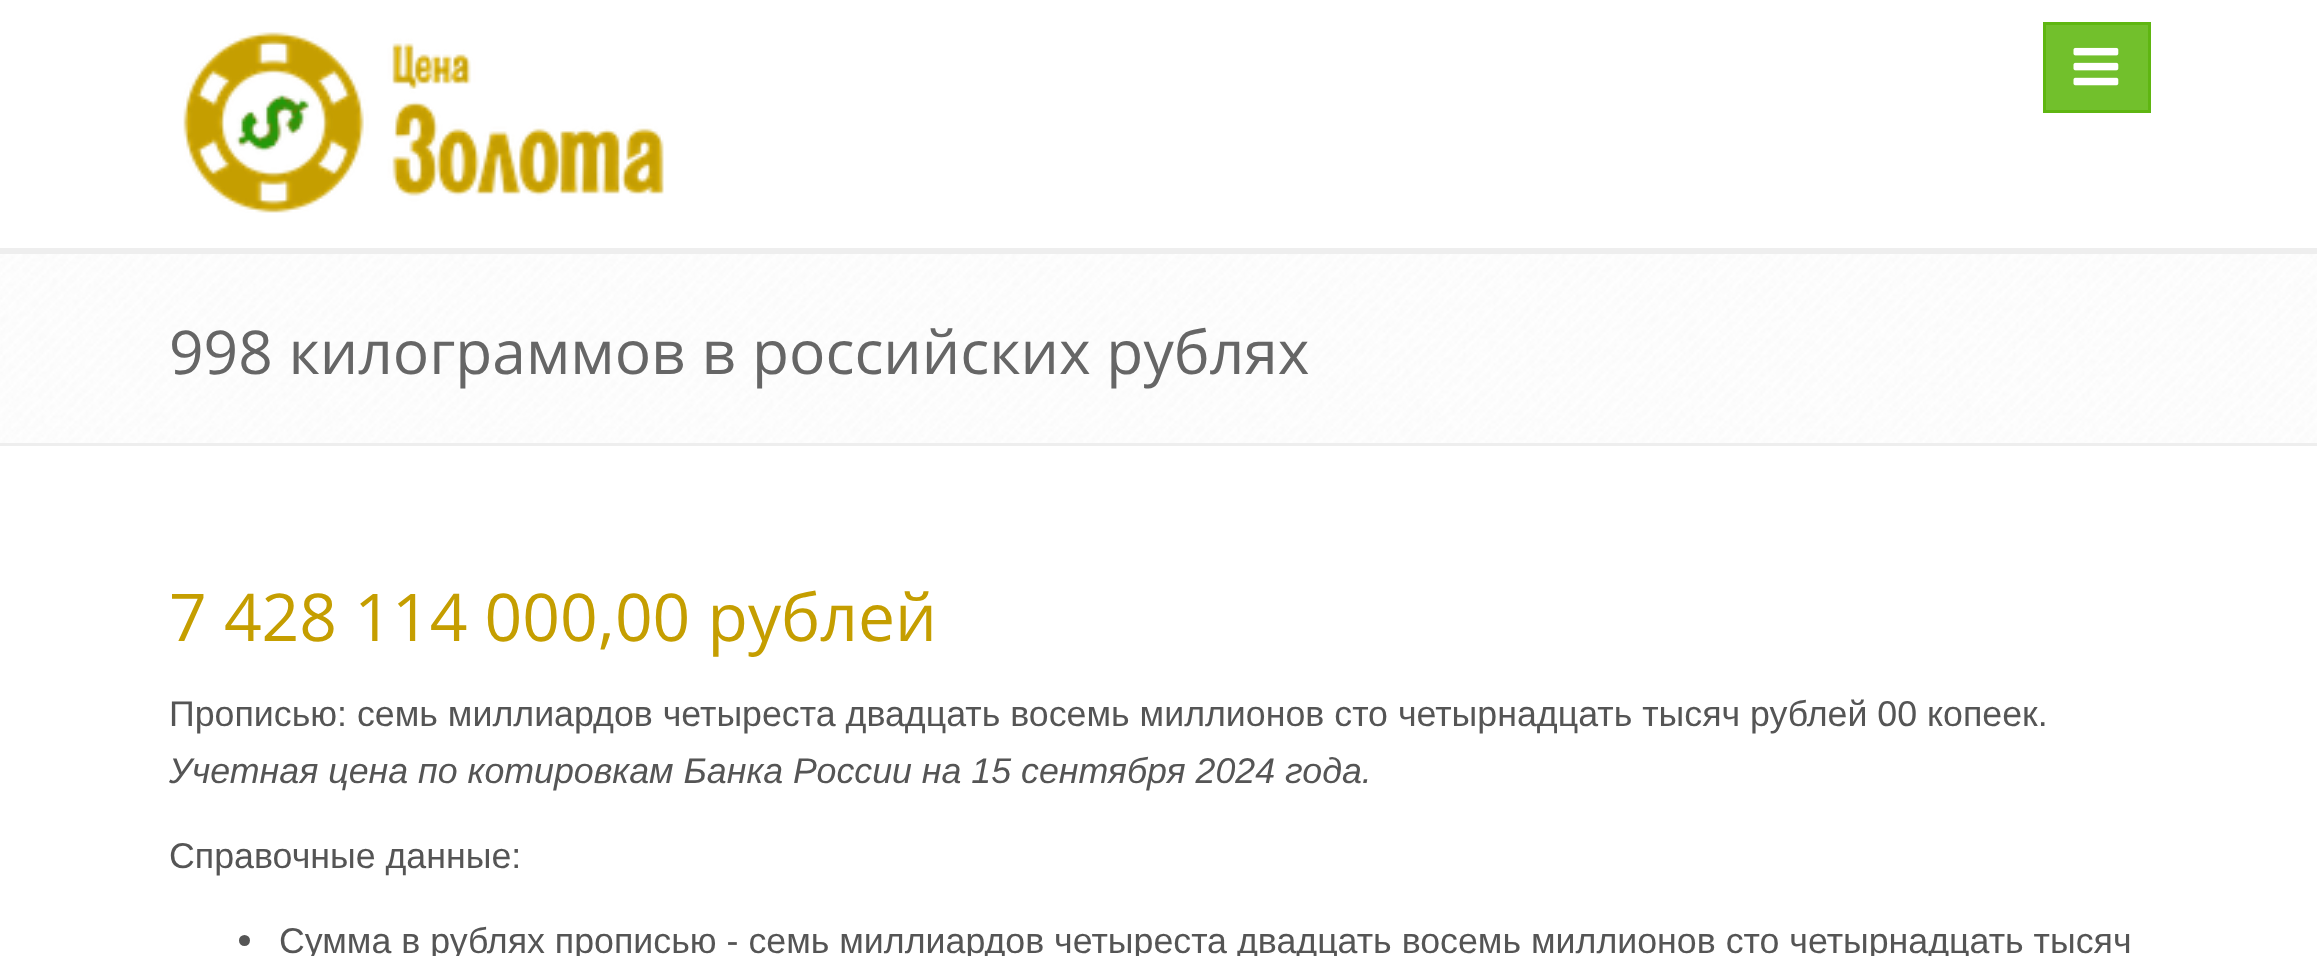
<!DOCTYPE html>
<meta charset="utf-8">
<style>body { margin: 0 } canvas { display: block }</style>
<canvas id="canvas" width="2317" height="956"></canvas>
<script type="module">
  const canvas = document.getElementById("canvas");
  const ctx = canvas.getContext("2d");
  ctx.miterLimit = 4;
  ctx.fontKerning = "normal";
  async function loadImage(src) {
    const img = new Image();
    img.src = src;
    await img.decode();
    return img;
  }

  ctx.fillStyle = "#ffffff";
  ctx.fillRect(0, 0, 2317, 956);
  ctx.fillStyle = "#eeeeee";
  ctx.fillRect(0, 248, 2317, 6);
  ctx.drawImage(await loadImage("img1.png"), 183, 32, 481, 181);
  ctx.fillStyle = "#72c02c";
  ctx.beginPath();
  ctx.rect(2044.5, 23.5, 105, 88);
  ctx.fill();
  ctx.strokeStyle = "#5fb611";
  ctx.lineWidth = 3;
  ctx.stroke();
  ctx.drawImage(await loadImage("img2.png"), 2073, 47, 46, 39);
  ctx.drawImage(await loadImage("img3.png"), 0, 254, 2317, 189);
  ctx.fillStyle = "#eeeeee";
  ctx.fillRect(0, 443, 2317, 3);
  ctx.font = "60.5px Open Sans";
  ctx.fillStyle = "#666666";
  ctx.fillText("998 килограммов в российских рублях", 169, 374);
  ctx.font = "66px Open Sans";
  ctx.fillStyle = "#c59e00";
  ctx.fillText("7 428 114 000,00 рублей", 169, 641);
  ctx.font = "35.75px Liberation Sans";
  ctx.fillStyle = "#555555";
  ctx.fillText("Прописью: семь миллиардов четыреста двадцать восемь миллионов сто четырнадцать тысяч рублей 00 копеек.", 169, 726);
  ctx.font = "italic 35.75px Liberation Sans";
  ctx.fillText("Учетная цена по котировкам Банка России на 15 сентября 2024 года.", 169, 783);
  ctx.font = "35.75px Liberation Sans";
  ctx.fillText("Справочные данные:", 169, 868);
  ctx.beginPath();
  ctx.arc(244.5, 940.5, 5.5, 0, Math.PI * 2);
  ctx.fill();
  ctx.fillText("Сумма в рублях прописью - семь миллиардов четыреста двадцать восемь миллионов сто четырнадцать тысяч", 279, 953);
</script>
